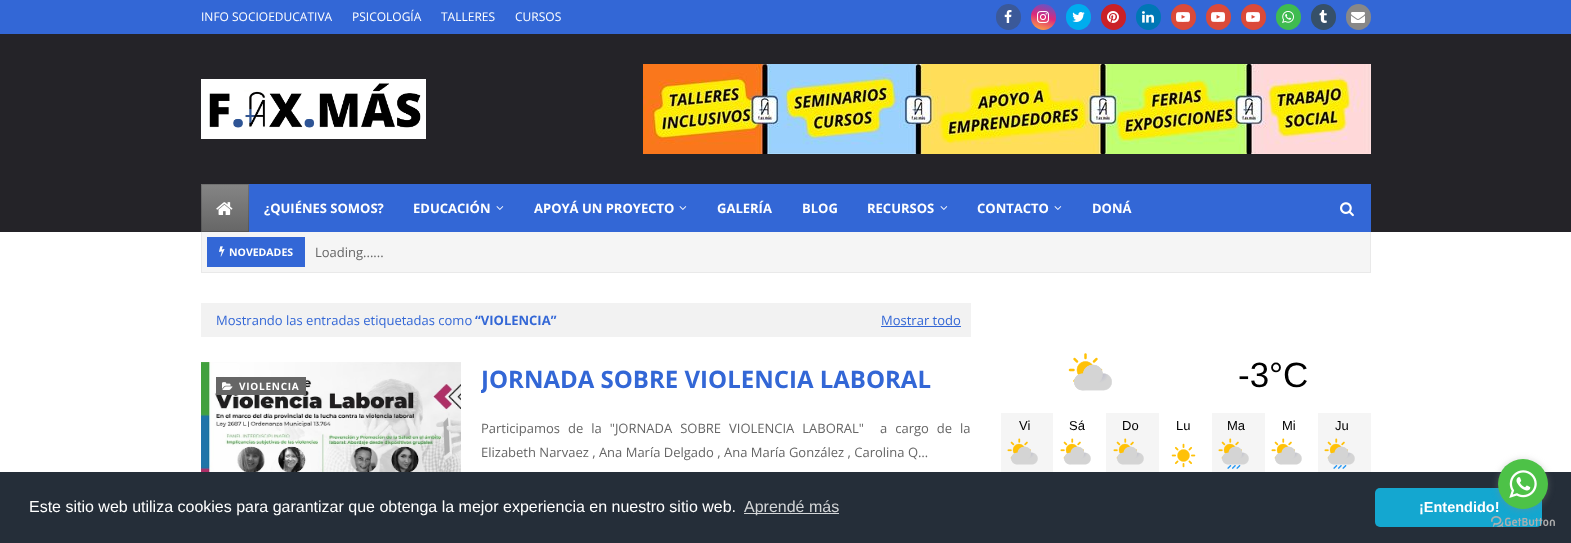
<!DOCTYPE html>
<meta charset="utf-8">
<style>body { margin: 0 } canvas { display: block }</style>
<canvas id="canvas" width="1571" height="543"></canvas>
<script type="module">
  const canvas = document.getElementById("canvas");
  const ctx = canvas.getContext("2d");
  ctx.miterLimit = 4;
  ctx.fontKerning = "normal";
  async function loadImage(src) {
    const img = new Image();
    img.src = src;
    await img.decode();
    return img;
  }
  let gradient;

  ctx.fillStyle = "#ffffff";
  ctx.fillRect(0, 0, 1571, 543);
  ctx.fillStyle = "#242328";
  ctx.fillRect(0, 34, 1571, 198);
  ctx.fillStyle = "#3367d6";
  ctx.fillRect(0, 0, 1571, 34);
  ctx.font = "12px Open Sans";
  ctx.fillStyle = "#ffffff";
  ctx.fillText("INFO SOCIOEDUCATIVA", 201, 21);
  ctx.fillText("PSICOLOGÍA", 352, 21);
  ctx.fillText("TALLERES", 441, 21);
  ctx.fillText("CURSOS", 515, 21);
  ctx.fillStyle = "#3b5999";
  ctx.beginPath();
  ctx.roundRect(996, 4, 25, 26, 12.5);
  ctx.fill();
  ctx.drawImage(await loadImage("img1.png"), 1004, 10, 8, 13);
  gradient = ctx.createLinearGradient(1039, 32, 1048, 1.7);
  gradient.addColorStop(0, "#ffb13d");
  gradient.addColorStop(0.5, "#dd277b");
  gradient.addColorStop(1, "#4d5ed4");
  ctx.fillStyle = gradient;
  ctx.beginPath();
  ctx.roundRect(1031, 4, 25, 26, 12.5);
  ctx.fill();
  ctx.drawImage(await loadImage("img2.png"), 1037, 11, 12, 12);
  ctx.fillStyle = "#00acee";
  ctx.beginPath();
  ctx.roundRect(1066, 4, 25, 26, 12.5);
  ctx.fill();
  ctx.drawImage(await loadImage("img3.png"), 1072, 12, 13, 10);
  ctx.fillStyle = "#ca2127";
  ctx.beginPath();
  ctx.roundRect(1101, 4, 25, 26, 12.5);
  ctx.fill();
  ctx.drawImage(await loadImage("img4.png"), 1107, 11, 12, 12);
  ctx.fillStyle = "#0077b5";
  ctx.beginPath();
  ctx.roundRect(1136, 4, 25, 26, 12.5);
  ctx.fill();
  ctx.drawImage(await loadImage("img5.png"), 1142, 11, 12, 12);
  ctx.fillStyle = "#db4a39";
  ctx.beginPath();
  ctx.roundRect(1171, 4, 25, 26, 12.5);
  ctx.fill();
  ctx.drawImage(await loadImage("img6.png"), 1176, 12, 14, 10);
  ctx.beginPath();
  ctx.roundRect(1206, 4, 25, 26, 12.5);
  ctx.fill();
  ctx.drawImage(await loadImage("img6.png"), 1211, 12, 14, 10);
  ctx.beginPath();
  ctx.roundRect(1241, 4, 25, 26, 12.5);
  ctx.fill();
  ctx.drawImage(await loadImage("img6.png"), 1246, 12, 14, 10);
  ctx.fillStyle = "#3fbb50";
  ctx.beginPath();
  ctx.roundRect(1276, 4, 25, 26, 12.5);
  ctx.fill();
  ctx.drawImage(await loadImage("img7.png"), 1282, 11, 12, 12);
  ctx.fillStyle = "#365069";
  ctx.beginPath();
  ctx.roundRect(1311, 4, 25, 26, 12.5);
  ctx.fill();
  ctx.drawImage(await loadImage("img8.png"), 1319, 10, 8, 13);
  ctx.fillStyle = "#888888";
  ctx.beginPath();
  ctx.roundRect(1346, 4, 25, 26, 12.5);
  ctx.fill();
  ctx.drawImage(await loadImage("img9.png"), 1351, 12, 14, 11);
  ctx.drawImage(await loadImage("img10.png"), 201, 79, 225, 60);
  ctx.drawImage(await loadImage("img11.png"), 643, 64, 728, 90);
  ctx.fillStyle = "#3367d6";
  ctx.fillRect(249, 184, 1122, 48);
  gradient = ctx.createLinearGradient(225, 184, 225, 232);
  gradient.addColorStop(0, "#858585");
  gradient.addColorStop(1, "#666666");
  ctx.fillStyle = gradient;
  ctx.fillRect(201, 184, 48, 48);
  ctx.strokeStyle = "rgba(0, 0, 0, 0.15)";
  ctx.strokeRect(201.5, 184.5, 47, 47);
  ctx.drawImage(await loadImage("img12.png"), 216, 202, 17, 13);
  ctx.font = "bold 13px Open Sans";
  ctx.fillStyle = "#ffffff";
  ctx.fillText("¿QUIÉNES SOMOS?", 264, 213);
  ctx.fillText("EDUCACIÓN", 413, 213);
  ctx.drawImage(await loadImage("img13.png"), 496, 206, 8, 4);
  ctx.fillText("APOYÁ UN PROYECTO", 534, 213);
  ctx.drawImage(await loadImage("img13.png"), 679, 206, 8, 4);
  ctx.fillText("GALERÍA", 717, 213);
  ctx.fillText("BLOG", 802, 213);
  ctx.fillText("RECURSOS", 867, 213);
  ctx.drawImage(await loadImage("img13.png"), 940, 206, 8, 4);
  ctx.fillText("CONTACTO", 977, 213);
  ctx.drawImage(await loadImage("img13.png"), 1054, 206, 8, 4);
  ctx.fillText("DONÁ", 1092, 213);
  ctx.drawImage(await loadImage("img14.png"), 1340, 202, 14, 15);
  ctx.fillStyle = "#f5f5f5";
  ctx.fillRect(202, 232, 1168, 40);
  ctx.fillStyle = "#e9e9e9";
  ctx.fillRect(1370, 232, 1, 41);
  ctx.fillRect(201, 272, 1170, 1);
  ctx.fillRect(201, 232, 1, 41);
  ctx.fillStyle = "#3367d6";
  ctx.fillRect(207, 237, 98, 30);
  ctx.drawImage(await loadImage("img15.png"), 219, 246, 6, 11);
  ctx.font = "bold 10.5px Open Sans";
  ctx.fillStyle = "#ffffff";
  ctx.fillText("NOVEDADES", 229, 256);
  ctx.font = "13px Open Sans";
  ctx.fillStyle = "#666666";
  ctx.fillText("Loading......", 315, 257);
  ctx.fillStyle = "#f2f2f2";
  ctx.fillRect(201, 303, 770, 34);
  ctx.fillStyle = "#3367d6";
  ctx.fillText("Mostrando las entradas etiquetadas como", 216, 325);
  ctx.font = "bold 13px Open Sans";
  ctx.fillText("“VIOLENCIA”", 475, 325);
  ctx.font = "13px Open Sans";
  ctx.fillText("Mostrar todo", 881, 325);
  ctx.fillRect(881, 326, 80, 1);
  ctx.drawImage(await loadImage("img16.png"), 201, 362, 260, 110);
  ctx.fillStyle = "#666666";
  ctx.fillRect(216, 377, 90, 18);
  ctx.drawImage(await loadImage("img17.png"), 222, 382, 11, 8);
  ctx.letterSpacing = "0.75px";
  ctx.font = "bold 10px Open Sans";
  ctx.fillStyle = "#ffffff";
  ctx.fillText("VIOLENCIA", 239, 390);
  ctx.save();
  ctx.beginPath();
  ctx.rect(481, 362, 490, 139);
  ctx.clip();
  ctx.letterSpacing = "0px";
  ctx.font = "bold 24px Open Sans";
  ctx.fillStyle = "#3367d6";
  ctx.fillText("JORNADA SOBRE VIOLENCIA LABORAL", 481, 388);
  ctx.restore();
  ctx.letterSpacing = "0px";
  ctx.wordSpacing = "4.6px";
  ctx.font = "13px Open Sans";
  ctx.fillStyle = "#666666";
  ctx.fillText("Participamos de la \"JORNADA SOBRE VIOLENCIA LABORAL\"  a cargo de la", 481, 433);
  ctx.wordSpacing = "0px";
  ctx.fillText("Elizabeth Narvaez , Ana María Delgado , Ana María González , Carolina Q…", 481, 457);
  ctx.drawImage(await loadImage("img18.png"), 1068, 353, 44, 38);
  ctx.font = "35px Liberation Sans";
  ctx.fillStyle = "#000000";
  ctx.fillText("-3°C", 1238, 387);
  ctx.fillStyle = "#f5f5f5";
  ctx.fillRect(1001, 413, 52, 59);
  ctx.font = "13px Liberation Sans";
  ctx.fillStyle = "#000000";
  ctx.fillText("Vi", 1019, 430);
  ctx.drawImage(await loadImage("img19.png"), 1007, 438, 31, 27);
  ctx.fillText("Sá", 1069, 430);
  ctx.drawImage(await loadImage("img20.png"), 1060, 438, 31, 27);
  ctx.fillStyle = "#f5f5f5";
  ctx.fillRect(1106, 413, 53, 59);
  ctx.fillStyle = "#000000";
  ctx.fillText("Do", 1122, 430);
  ctx.drawImage(await loadImage("img19.png"), 1113, 438, 31, 27);
  ctx.fillText("Lu", 1176, 430);
  ctx.drawImage(await loadImage("img21.png"), 1171, 443, 25, 25);
  ctx.fillStyle = "#f5f5f5";
  ctx.fillRect(1212, 413, 53, 59);
  ctx.fillStyle = "#000000";
  ctx.fillText("Ma", 1227, 430);
  ctx.drawImage(await loadImage("img22.png"), 1218, 438, 31, 31);
  ctx.fillText("Mi", 1282, 430);
  ctx.drawImage(await loadImage("img20.png"), 1271, 438, 31, 27);
  ctx.fillStyle = "#f5f5f5";
  ctx.fillRect(1318, 413, 53, 59);
  ctx.fillStyle = "#000000";
  ctx.fillText("Ju", 1335, 430);
  ctx.drawImage(await loadImage("img22.png"), 1324, 438, 31, 31);
  ctx.fillStyle = "#252e39";
  ctx.fillRect(0, 472, 1571, 71);
  ctx.font = "16px Liberation Sans";
  ctx.fillStyle = "#ffffff";
  ctx.fillText("Este sitio web utiliza cookies para garantizar que obtenga la mejor experiencia en nuestro sitio web.", 29, 512);
  ctx.fillStyle = "#d3d5d7";
  ctx.fillRect(744, 513, 95, 1);
  ctx.fillText("Aprendé más", 744, 512);
  ctx.fillStyle = "#14a7d0";
  ctx.beginPath();
  ctx.roundRect(1375, 488, 167, 39, 5);
  ctx.fill();
  ctx.font = "bold 14.5px Liberation Sans";
  ctx.fillStyle = "#ffffff";
  ctx.fillText("¡Entendido!", 1419, 512);
  ctx.drawImage(await loadImage("img24.png"), 1491, 516, 64, 11);
  ctx.fillStyle = "rgba(136, 136, 136, 0.4)";
  ctx.filter = "blur(3.5px)";
  ctx.beginPath();
  ctx.roundRect(1498, 460, 50, 50, 25);
  ctx.fill();
  ctx.filter = "none";
  ctx.fillStyle = "#4dc247";
  ctx.beginPath();
  ctx.arc(1523, 484, 25, 0, Math.PI * 2);
  ctx.fill();
  ctx.drawImage(await loadImage("img23.png"), 1509, 470, 28, 28);
</script>
